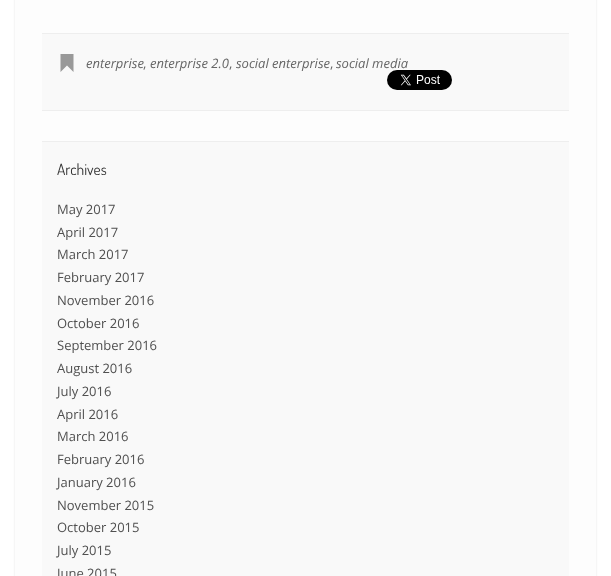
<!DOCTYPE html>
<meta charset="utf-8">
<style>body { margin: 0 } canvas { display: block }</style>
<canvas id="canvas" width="611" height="576"></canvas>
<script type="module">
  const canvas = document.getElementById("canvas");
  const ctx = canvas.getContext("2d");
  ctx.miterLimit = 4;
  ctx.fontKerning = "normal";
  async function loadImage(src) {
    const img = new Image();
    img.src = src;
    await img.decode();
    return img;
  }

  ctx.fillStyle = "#ffffff";
  ctx.fillRect(0, 0, 611, 576);
  ctx.fillStyle = "rgba(0, 0, 0, 0.1)";
  ctx.filter = "blur(1px)";
  ctx.beginPath();
  ctx.rect(15, -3, 581, 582);
  ctx.fill();
  ctx.filter = "none";
  ctx.fillStyle = "#fdfdfd";
  ctx.fillRect(15, 0, 581, 576);
  ctx.fillStyle = "#f9f9f9";
  ctx.fillRect(42, 34, 527, 76);
  ctx.fillStyle = "#eeeeee";
  ctx.fillRect(42, 33, 527, 1);
  ctx.fillRect(42, 110, 527, 1);
  ctx.fillStyle = "#999999";
  ctx.beginPath();
  ctx.moveTo(73.5, 72);
  ctx.lineTo(73.5, 54);
  ctx.lineTo(60.5, 54);
  ctx.lineTo(60.5, 72);
  ctx.lineTo(67, 65.5);
  ctx.closePath();
  ctx.fill();
  ctx.font = "italic 13px Open Sans";
  ctx.fillStyle = "#666666";
  ctx.fillText("enterprise", 86, 68);
  ctx.font = "13px Open Sans";
  ctx.fillText(",", 143, 68);
  ctx.font = "italic 13px Open Sans";
  ctx.fillText("enterprise 2.0", 150, 68);
  ctx.font = "13px Open Sans";
  ctx.fillText(",", 229, 68);
  ctx.font = "italic 13px Open Sans";
  ctx.fillText("social enterprise", 236, 68);
  ctx.font = "13px Open Sans";
  ctx.fillText(",", 330, 68);
  ctx.font = "italic 13px Open Sans";
  ctx.fillText("social media", 336, 68);
  ctx.drawImage(await loadImage("img1.png"), 387, 70, 65, 20);
  ctx.fillStyle = "#f9f9f9";
  ctx.fillRect(42, 142, 527, 434);
  ctx.fillStyle = "#eeeeee";
  ctx.fillRect(42, 141, 527, 1);
  ctx.font = "15.5px Dosis";
  ctx.fillStyle = "#333333";
  ctx.fillText("Archives", 57, 175);
  ctx.font = "13px Open Sans";
  ctx.fillStyle = "#505050";
  ctx.fillText("May 2017", 57, 214);
  ctx.fillText("April 2017", 57, 237);
  ctx.fillText("March 2017", 57, 259);
  ctx.fillText("February 2017", 57, 282);
  ctx.fillText("November 2016", 57, 305);
  ctx.fillText("October 2016", 57, 328);
  ctx.fillText("September 2016", 57, 350);
  ctx.fillText("August 2016", 57, 373);
  ctx.fillText("July 2016", 57, 396);
  ctx.fillText("April 2016", 57, 419);
  ctx.fillText("March 2016", 57, 441);
  ctx.fillText("February 2016", 57, 464);
  ctx.fillText("January 2016", 57, 487);
  ctx.fillText("November 2015", 57, 510);
  ctx.fillText("October 2015", 57, 532);
  ctx.fillText("July 2015", 57, 555);
  ctx.fillText("June 2015", 57, 578);
</script>
